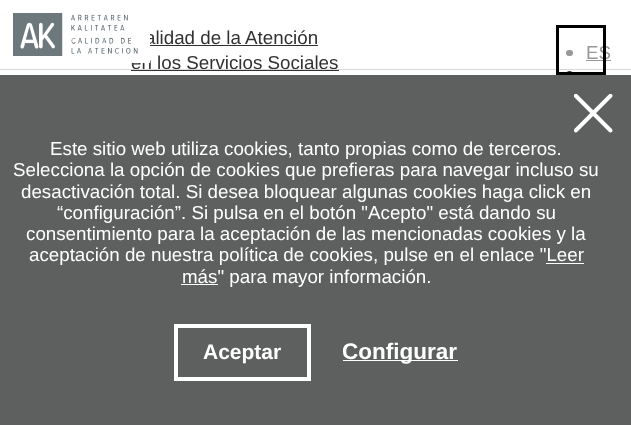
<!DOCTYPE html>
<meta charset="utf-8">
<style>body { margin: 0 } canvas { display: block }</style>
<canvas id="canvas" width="631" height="425"></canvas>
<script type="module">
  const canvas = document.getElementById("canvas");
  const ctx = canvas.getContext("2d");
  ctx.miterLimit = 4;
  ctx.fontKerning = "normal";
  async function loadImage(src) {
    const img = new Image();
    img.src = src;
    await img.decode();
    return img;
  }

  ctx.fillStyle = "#ffffff";
  ctx.fillRect(0, 0, 631, 425);
  ctx.fillStyle = "#989898";
  ctx.beginPath();
  ctx.roundRect(566, 50, 7, 6, 3);
  ctx.fill();
  ctx.font = "18.75px Liberation Sans";
  ctx.fillText("ES", 586, 59);
  ctx.fillRect(586, 60, 25, 1);
  ctx.fillStyle = "#313131";
  ctx.beginPath();
  ctx.arc(569.5, 74.5, 3.5, 0, Math.PI * 2);
  ctx.fill();
  ctx.fillText("en los Servicios Sociales", 131, 69);
  ctx.fillStyle = "#d8d8d8";
  ctx.fillRect(0, 69, 631, 1);
  ctx.strokeStyle = "#000000";
  ctx.lineWidth = 3;
  ctx.strokeRect(557.5, 26.5, 47, 47);
  ctx.fillStyle = "#313131";
  ctx.fillText("alidad de la Atención", 145, 44);
  ctx.fillStyle = "#ffffff";
  ctx.fillRect(132, 33, 18, 30);
  ctx.drawImage(await loadImage("img1.png"), 13, 13, 125, 43);
  ctx.fillStyle = "#313131";
  ctx.fillRect(150, 45, 168, 1);
  ctx.fillRect(131, 70, 208, 1);
  ctx.fillStyle = "#5e5f5f";
  ctx.fillRect(0, 75, 631, 350);
  ctx.drawImage(await loadImage("img2.png"), 574, 94, 39, 39);
  ctx.fillStyle = "#ffffff";
  ctx.fillText("Este sitio web utiliza cookies, tanto propias como de terceros.", 50, 155);
  ctx.fillText("Selecciona la opción de cookies que prefieras para navegar incluso su", 13, 176);
  ctx.fillText("desactivación total. Si desea bloquear algunas cookies haga click en", 21, 198);
  ctx.fillText("“configuración”. Si pulsa en el botón \"Acepto\" está dando su", 57, 219);
  ctx.fillText("consentimiento para la aceptación de las mencionadas cookies y la", 26, 240);
  ctx.fillText("aceptación de nuestra política de cookies, pulse en el enlace \"Leer", 29, 261);
  ctx.fillRect(181, 284, 37, 1);
  ctx.fillText("más\" para mayor información.", 182, 283);
  ctx.fillRect(546, 263, 38, 1);
  ctx.strokeStyle = "#ffffff";
  ctx.lineWidth = 4;
  ctx.strokeRect(176, 326, 133, 53);
  ctx.font = "bold 21px Liberation Sans";
  ctx.fillText("Aceptar", 203, 359);
  ctx.fillRect(343, 360, 115, 1);
  ctx.font = "bold 22.5px Liberation Sans";
  ctx.fillText("Configurar", 342, 359);
</script>
